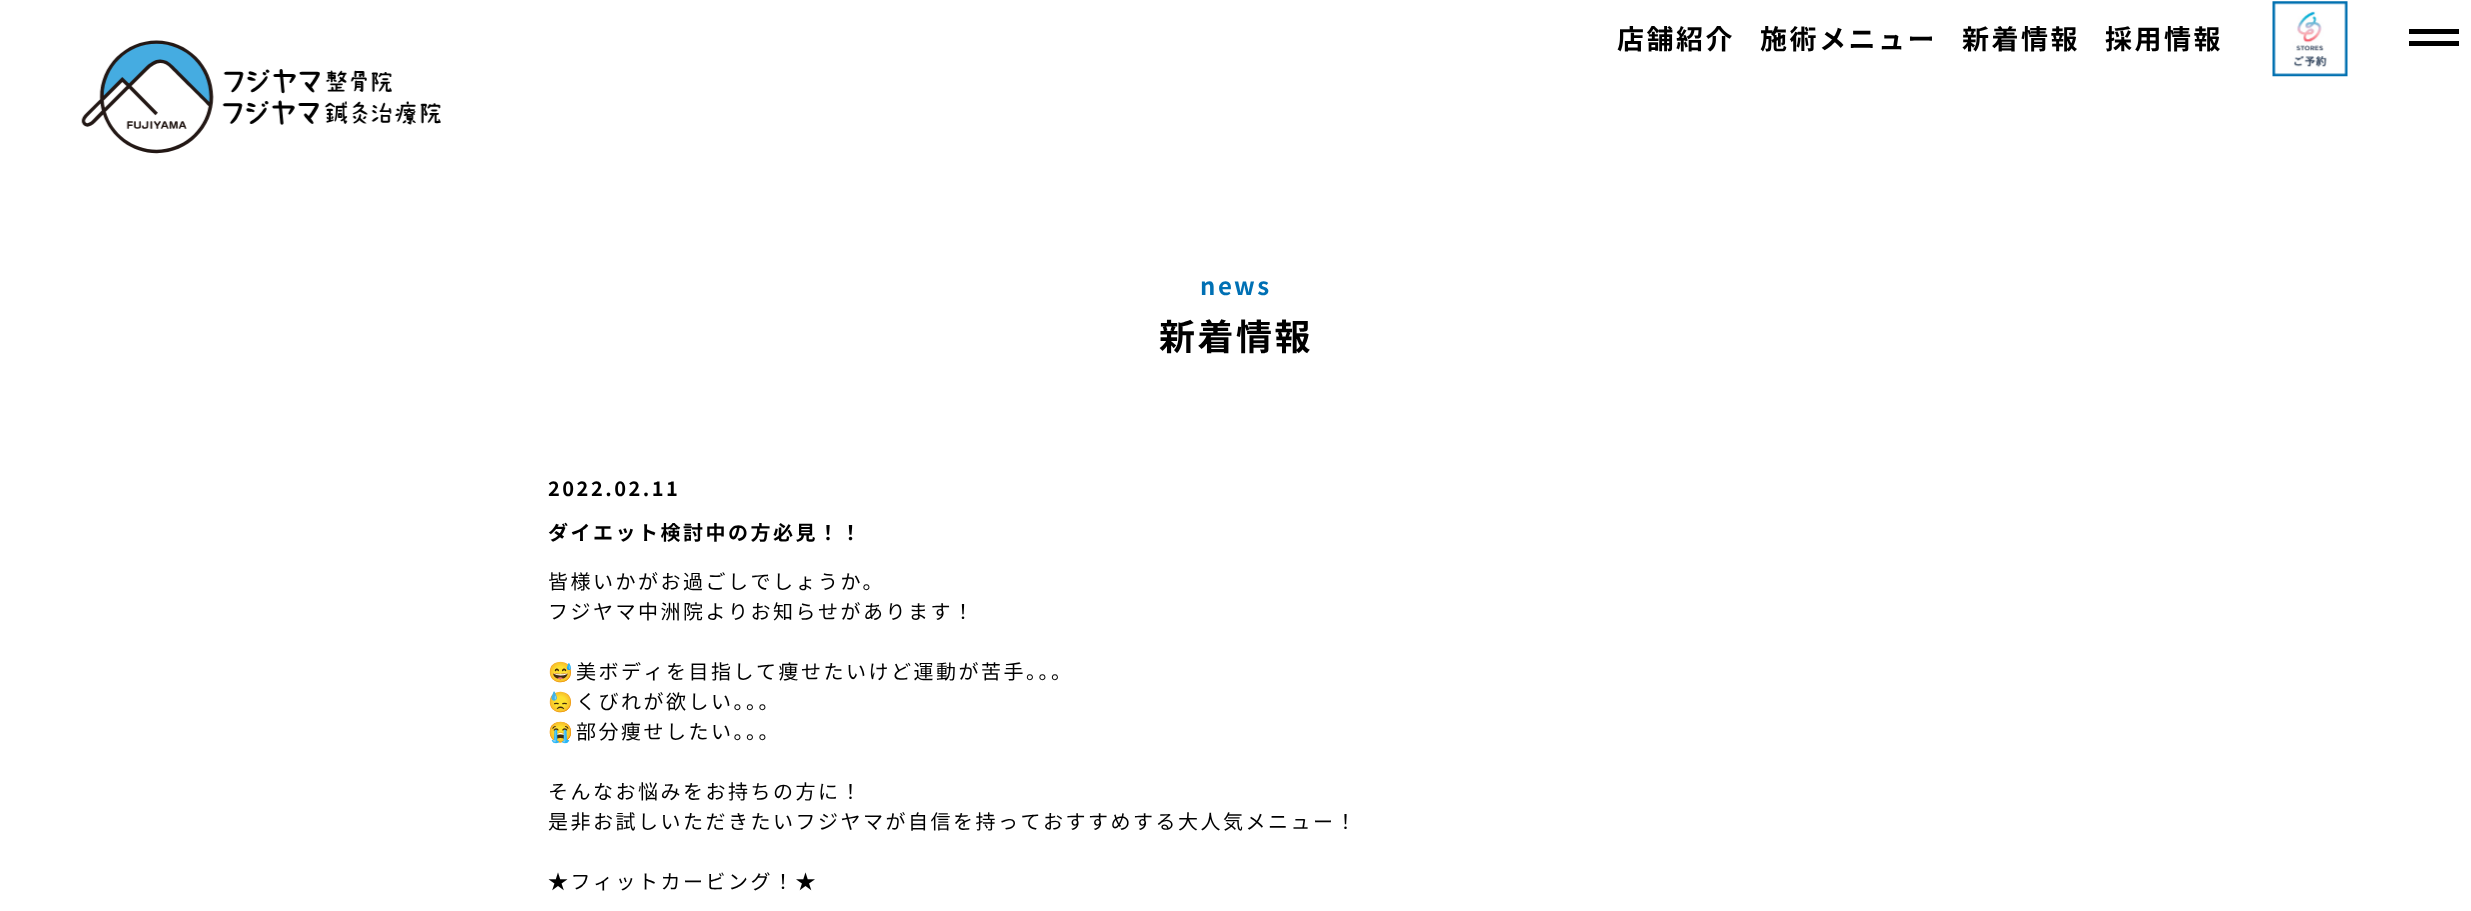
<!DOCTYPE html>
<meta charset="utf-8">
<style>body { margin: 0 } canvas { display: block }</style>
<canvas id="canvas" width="2471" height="911"></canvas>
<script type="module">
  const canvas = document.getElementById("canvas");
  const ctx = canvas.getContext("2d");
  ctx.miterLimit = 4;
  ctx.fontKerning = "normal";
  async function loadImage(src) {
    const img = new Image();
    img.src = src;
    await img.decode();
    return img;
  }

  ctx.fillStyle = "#ffffff";
  ctx.fillRect(0, 0, 2471, 911);
  ctx.letterSpacing = "2.5px";
  ctx.font = "bold 27px Noto Sans JP";
  ctx.fillStyle = "#000000";
  ctx.fillText("店舗紹介", 1617, 49);
  ctx.fillText("施術メニュー", 1760, 49);
  ctx.fillText("新着情報", 1962, 49);
  ctx.fillText("採用情報", 2105, 49);
  ctx.drawImage(await loadImage("img1.png"), 2272, 1, 76, 76);
  ctx.fillRect(2409, 29, 50, 5);
  ctx.fillRect(2409, 41, 50, 5);
  ctx.drawImage(await loadImage("img2.png"), 81, 40, 360, 114);
  ctx.font = "bold 24px Noto Sans JP";
  ctx.fillStyle = "#0070b4";
  ctx.fillText("news", 1200, 295);
  ctx.font = "bold 36px Noto Sans JP";
  ctx.fillStyle = "#000000";
  ctx.fillText("新着情報", 1159, 350);
  ctx.font = "bold 20px Noto Sans JP";
  ctx.fillText("2022.02.11", 548, 496);
  ctx.fillText("ダイエット検討中の方必見！！", 548, 540);
  ctx.font = "20px Noto Sans JP";
  ctx.fillText("皆様いかがお過ごしでしょうか。", 548, 589);
  ctx.fillText("フジヤマ中洲院よりお知らせがあります！", 548, 619);
  ctx.font = "20px Noto Color Emoji";
  ctx.fillText("😅", 548, 679);
  ctx.font = "20px Noto Sans JP";
  ctx.fillText("美ボディを目指して痩せたいけど運動が苦手。。。", 576, 679);
  ctx.font = "20px Noto Color Emoji";
  ctx.fillText("😓", 548, 709);
  ctx.font = "20px Noto Sans JP";
  ctx.fillText("くびれが欲しい。。。", 576, 709);
  ctx.font = "20px Noto Color Emoji";
  ctx.fillText("😭", 548, 739);
  ctx.font = "20px Noto Sans JP";
  ctx.fillText("部分痩せしたい。。。", 576, 739);
  ctx.fillText("そんなお悩みをお持ちの方に！", 548, 799);
  ctx.fillText("是非お試しいただきたいフジヤマが自信を持っておすすめする大人気メニュー！", 548, 829);
  ctx.fillText("★フィットカービング！★", 548, 889);
</script>
